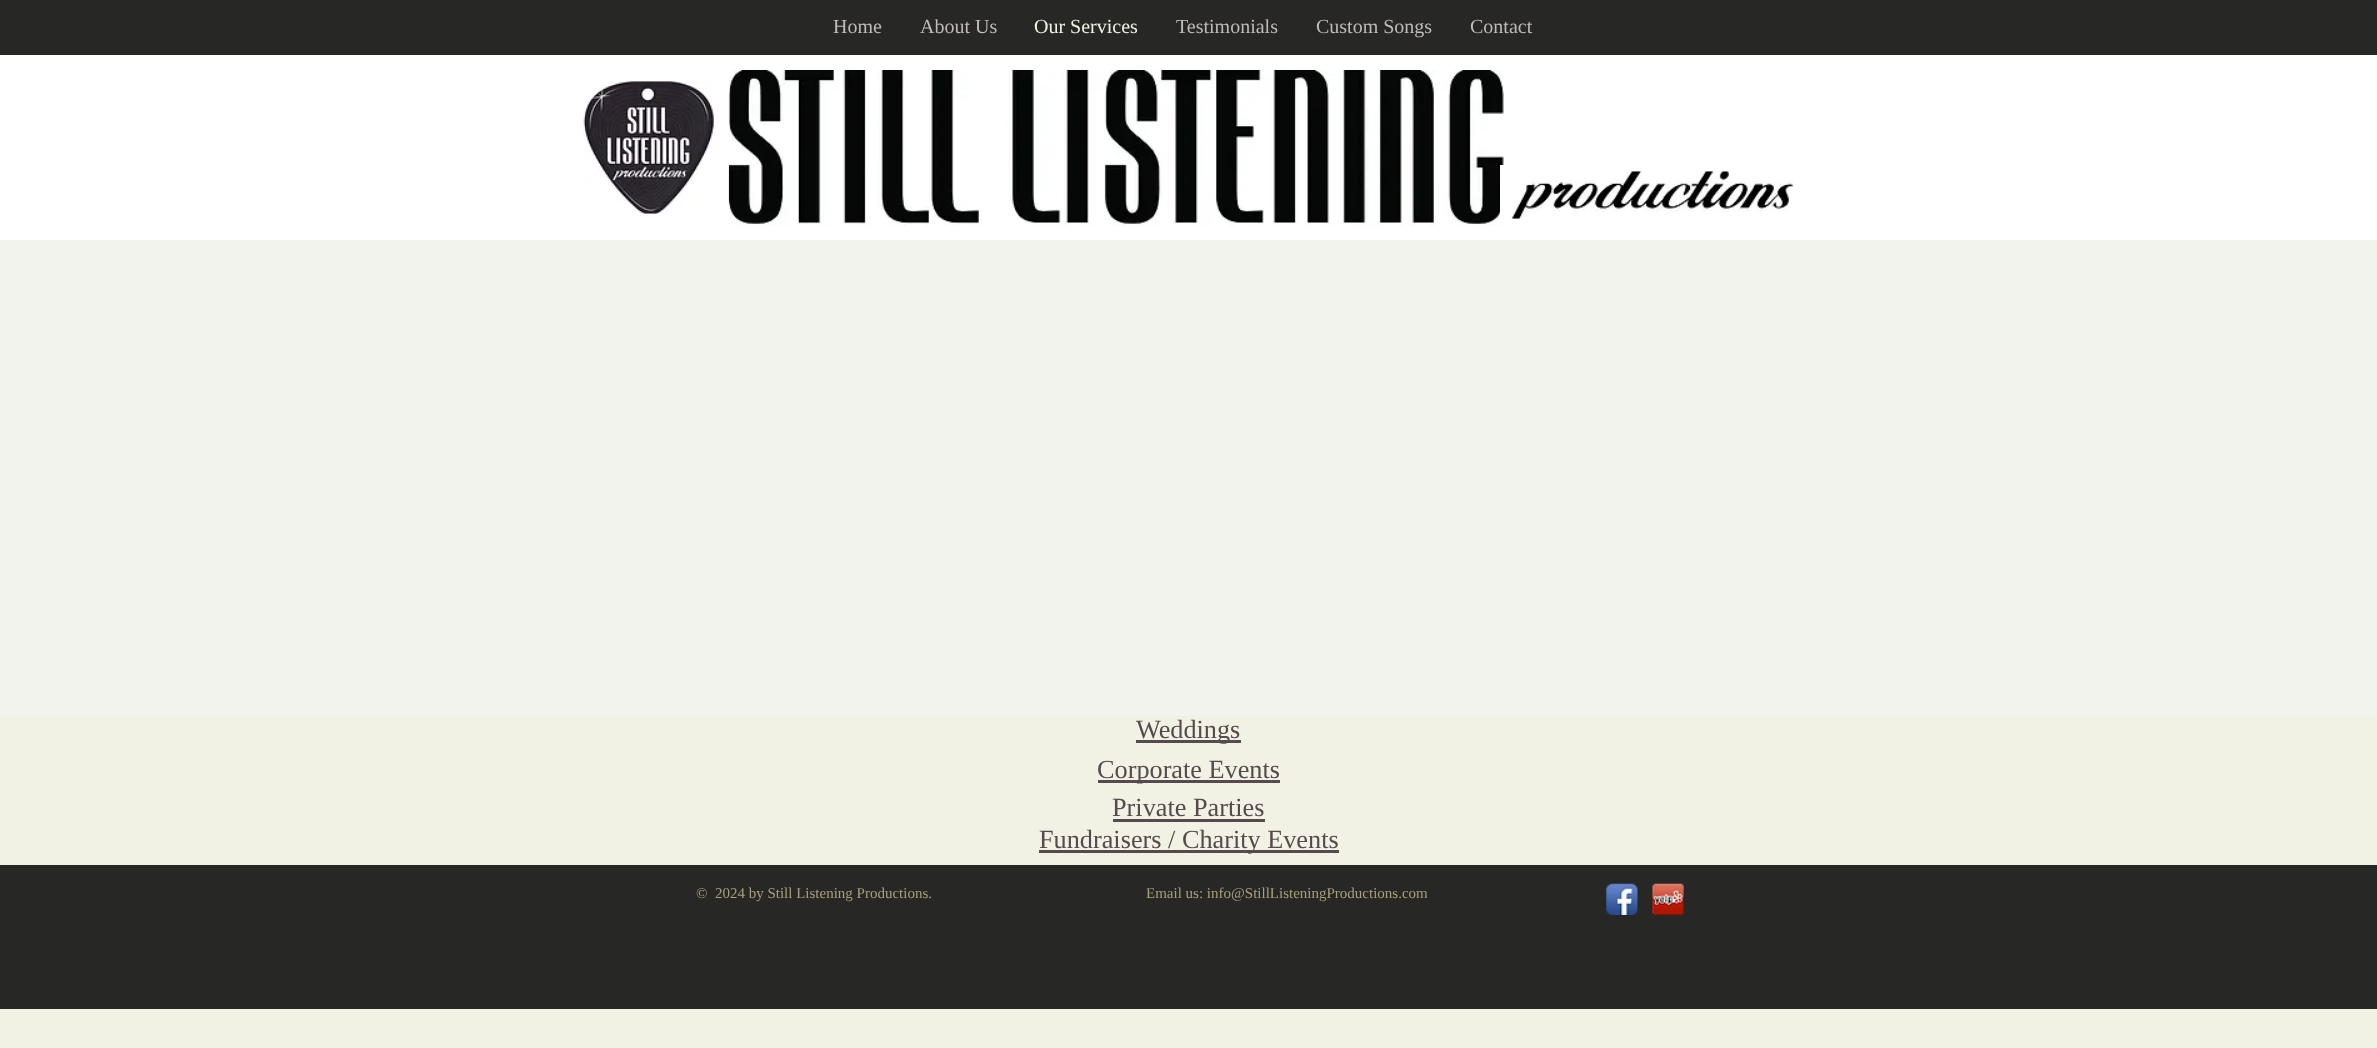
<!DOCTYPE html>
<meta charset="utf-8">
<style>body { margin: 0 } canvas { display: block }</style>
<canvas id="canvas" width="2377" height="1048"></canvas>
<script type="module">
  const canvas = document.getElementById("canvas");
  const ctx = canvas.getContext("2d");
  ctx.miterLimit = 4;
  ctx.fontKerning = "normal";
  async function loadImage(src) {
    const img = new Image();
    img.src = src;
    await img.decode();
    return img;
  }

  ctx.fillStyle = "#f1f1e4";
  ctx.fillRect(0, 0, 2377, 1048);
  ctx.fillStyle = "#272725";
  ctx.fillRect(0, 0, 2377, 55);
  ctx.font = "20px Liberation Serif";
  ctx.fillStyle = "#c0babc";
  ctx.fillText("Home", 833, 33);
  ctx.fillText("About Us", 920, 33);
  ctx.fillStyle = "#f1f1e4";
  ctx.fillText("Our Services", 1034, 33);
  ctx.fillStyle = "#c0babc";
  ctx.fillText("Testimonials", 1176, 33);
  ctx.fillText("Custom Songs", 1316, 33);
  ctx.fillText("Contact", 1470, 33);
  ctx.fillStyle = "#ffffff";
  ctx.fillRect(0, 55, 2377, 185);
  ctx.drawImage(await loadImage("img1.png"), 583, 81, 132, 133);
  ctx.drawImage(await loadImage("img2.png"), 728, 70, 776, 157);
  ctx.fillRect(1500, 165, 4, 50);
  ctx.drawImage(await loadImage("img3.png"), 1511, 171, 283, 48);
  ctx.fillStyle = "#f3f3ee";
  ctx.fillRect(0, 241, 2377, 475);
  ctx.fillStyle = "#554a4d";
  ctx.fillRect(1136, 740, 105, 3);
  ctx.font = "26.25px Liberation Serif";
  ctx.fillText("Weddings", 1136, 738);
  ctx.fillRect(1098, 780, 182, 3);
  ctx.fillText("Corporate Events", 1097, 778);
  ctx.fillText("Private Parties", 1112, 816);
  ctx.fillRect(1113, 819, 152, 3);
  ctx.fillRect(1039, 850, 300, 3);
  ctx.fillText("Fundraisers / Charity Events", 1039, 848);
  ctx.fillStyle = "#272725";
  ctx.fillRect(0, 865, 2377, 144);
  ctx.font = "15px Liberation Serif";
  ctx.fillStyle = "#aa9f7b";
  ctx.fillText("©  2024 by Still Listening Productions.", 696, 898);
  ctx.fillText("Email us: info@StillListeningProductions.com", 1146, 898);
  ctx.drawImage(await loadImage("img4.png"), 1606, 883, 32, 32);
  ctx.drawImage(await loadImage("img5.png"), 1652, 883, 32, 32);
</script>
